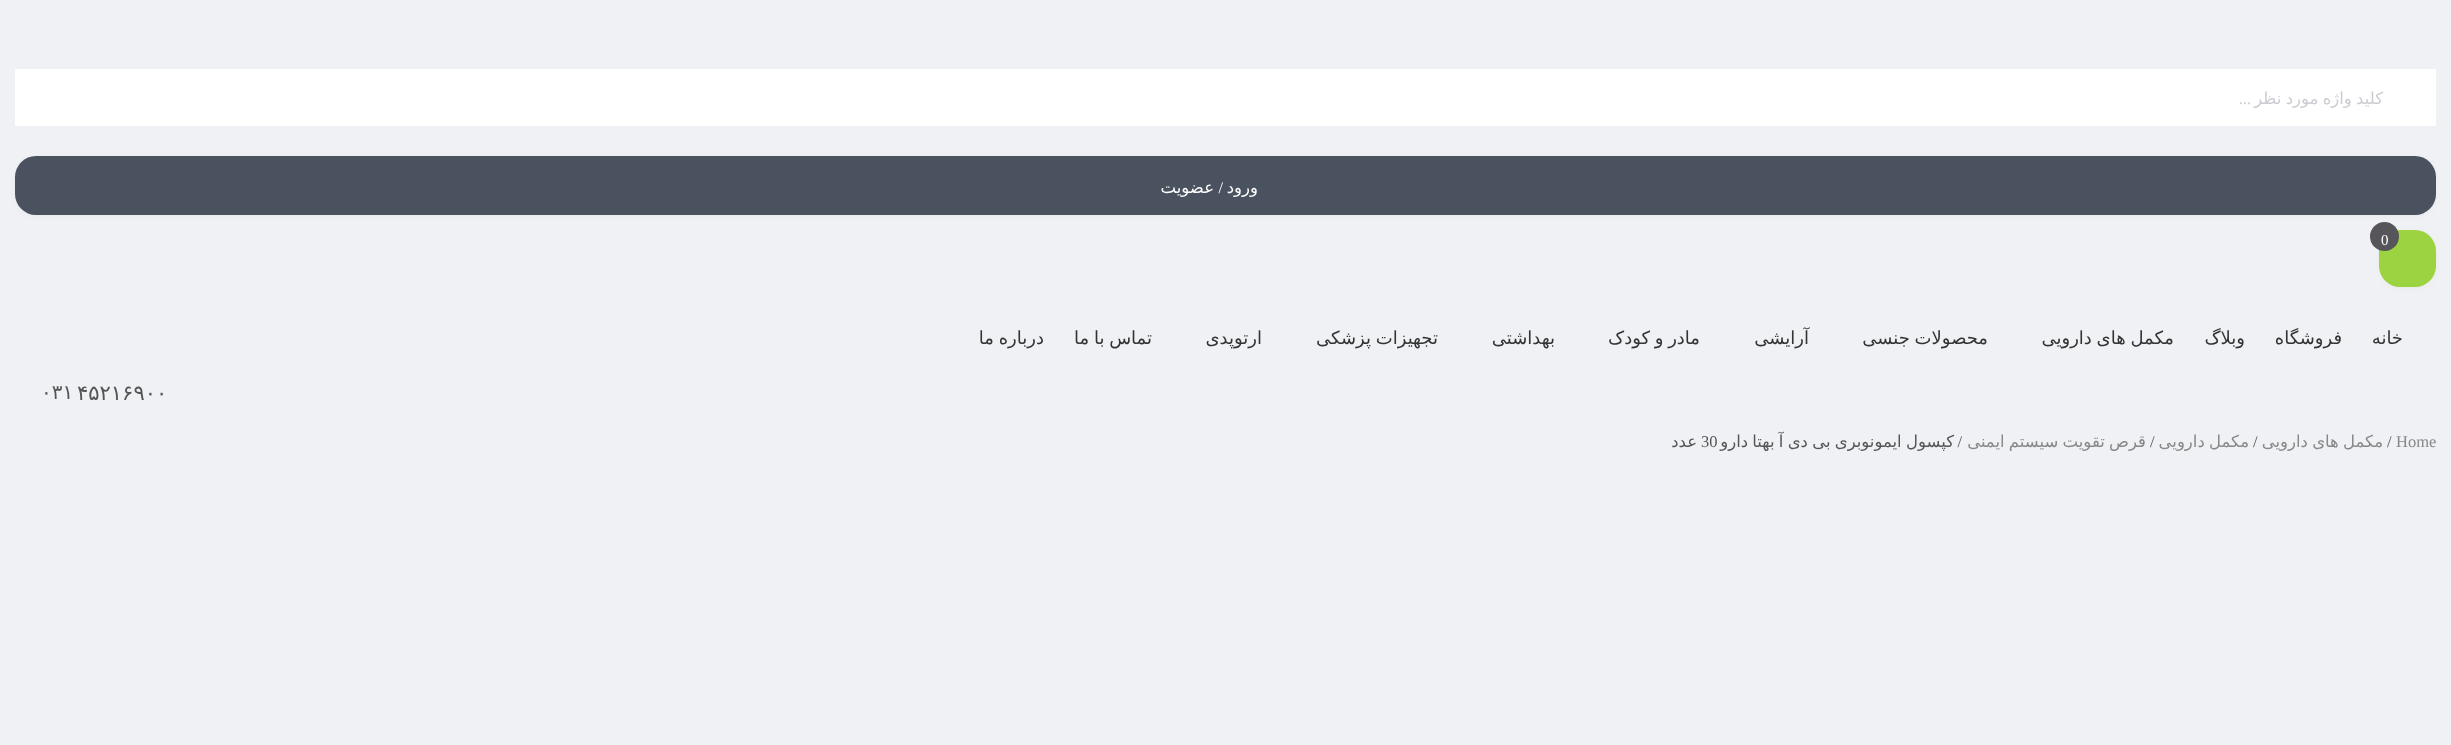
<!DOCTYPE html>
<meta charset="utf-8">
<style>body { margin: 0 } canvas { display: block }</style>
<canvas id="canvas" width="2451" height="745"></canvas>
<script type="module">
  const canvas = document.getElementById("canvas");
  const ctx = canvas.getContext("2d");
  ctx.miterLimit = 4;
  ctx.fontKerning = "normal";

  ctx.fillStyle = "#eff1f5";
  ctx.fillRect(0, 0, 2451, 745);
  ctx.fillStyle = "#ffffff";
  ctx.fillRect(15, 69, 2421, 57);
  ctx.save();
  ctx.beginPath();
  ctx.rect(30, 89, 2354, 19);
  ctx.clip();
  ctx.wordSpacing = "-1px";
  ctx.direction = "rtl";
  ctx.font = "16.5px DejaVu Sans";
  ctx.fillStyle = "#cbccd2";
  ctx.fillText("کلید واژه مورد نظر", 2383, 104);
  ctx.restore();
  ctx.direction = "rtl";
  ctx.font = "16.5px Liberation Serif";
  ctx.fillStyle = "#cbccd2";
  ctx.fillText("...", 2251, 104);
  ctx.fillStyle = "rgba(0, 0, 0, 0.1)";
  ctx.filter = "blur(5px)";
  ctx.beginPath();
  ctx.roundRect(20, 162, 2412, 50, 17);
  ctx.fill();
  ctx.filter = "none";
  ctx.fillStyle = "#4a515f";
  ctx.beginPath();
  ctx.roundRect(15, 156, 2421, 59, 21);
  ctx.fill();
  ctx.font = "16.5px DejaVu Sans";
  ctx.fillStyle = "#ffffff";
  ctx.fillText("ورود", 1258, 193);
  ctx.font = "16.5px Liberation Serif";
  ctx.fillText("/", 1223, 193);
  ctx.font = "16.5px DejaVu Sans";
  ctx.fillText("عضویت", 1214, 193);
  ctx.fillStyle = "rgba(0, 0, 0, 0.1)";
  ctx.filter = "blur(5px)";
  ctx.beginPath();
  ctx.roundRect(2384, 236, 48, 48, 17);
  ctx.fill();
  ctx.filter = "none";
  ctx.fillStyle = "#9bd341";
  ctx.beginPath();
  ctx.roundRect(2379, 230, 57, 57, 21);
  ctx.fill();
  ctx.fillStyle = "#55555a";
  ctx.beginPath();
  ctx.arc(2384.5, 236.5, 14.5, 0, Math.PI * 2);
  ctx.fill();
  ctx.direction = "ltr";
  ctx.font = "15px Liberation Serif";
  ctx.fillStyle = "#ffffff";
  ctx.fillText("0", 2381, 245);
  ctx.direction = "rtl";
  ctx.font = "18px DejaVu Sans";
  ctx.fillStyle = "#333333";
  ctx.fillText("خانه", 2403, 344);
  ctx.fillText("فروشگاه", 2342, 344);
  ctx.fillText("وبلاگ", 2245, 344);
  ctx.wordSpacing = "-1px";
  ctx.fillText("مکمل های دارویی", 2174, 344);
  ctx.fillText("محصولات جنسی", 1988, 344);
  ctx.wordSpacing = "0px";
  ctx.fillText("آرایشی", 1809, 344);
  ctx.wordSpacing = "-1px";
  ctx.fillText("مادر و کودک", 1700, 344);
  ctx.wordSpacing = "0px";
  ctx.fillText("بهداشتی", 1555, 344);
  ctx.wordSpacing = "-1px";
  ctx.fillText("تجهیزات پزشکی", 1438, 344);
  ctx.wordSpacing = "0px";
  ctx.fillText("ارتوپدی", 1262, 344);
  ctx.wordSpacing = "-1px";
  ctx.fillText("تماس با ما", 1152, 344);
  ctx.fillText("درباره ما", 1044, 344);
  ctx.wordSpacing = "0px";
  ctx.direction = "ltr";
  ctx.font = "21px DejaVu Sans";
  ctx.fillStyle = "#555555";
  ctx.fillText("۴۵۲۱۶۹۰۰", 77, 400);
  ctx.font = "20px DejaVu Sans";
  ctx.fillText("۰۳۱", 41, 399);
  ctx.wordSpacing = "-1px";
  ctx.direction = "rtl";
  ctx.font = "16.5px DejaVu Sans";
  ctx.fillStyle = "#888888";
  ctx.fillText("مکمل های دارویی", 2383, 447);
  ctx.fillText("مکمل دارویی", 2249, 447);
  ctx.fillText("قرص تقویت سیستم ایمنی", 2146, 447);
  ctx.fillStyle = "#555555";
  ctx.fillText("کپسول ایمونوبری بی دی آ بهتا دارو", 1954, 447);
  ctx.wordSpacing = "0px";
  ctx.direction = "ltr";
  ctx.font = "16.5px Liberation Serif";
  ctx.fillText("30", 1701, 447);
  ctx.fillStyle = "#888888";
  ctx.fillText("Home", 2396, 447);
  ctx.fillStyle = "#555555";
  ctx.fillText("/", 2387, 447);
  ctx.fillText("/", 2253, 447);
  ctx.fillText("/", 2150, 447);
  ctx.direction = "rtl";
  ctx.fillText("/", 1962, 447);
  ctx.font = "16.5px DejaVu Sans";
  ctx.fillText("عدد", 1697, 447);
</script>
